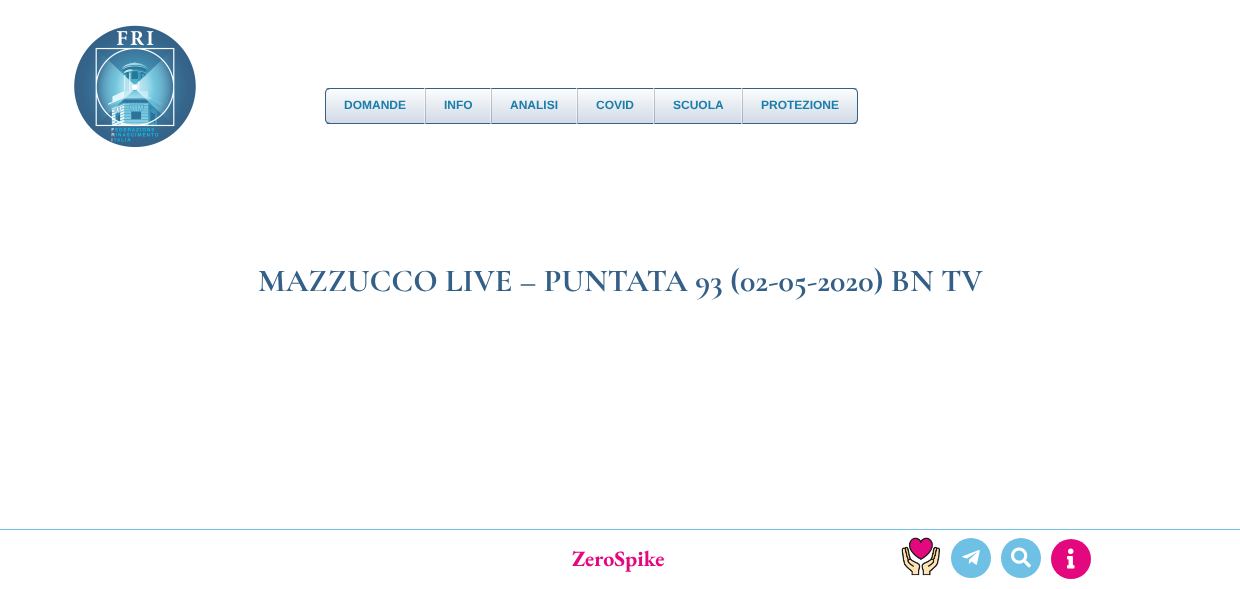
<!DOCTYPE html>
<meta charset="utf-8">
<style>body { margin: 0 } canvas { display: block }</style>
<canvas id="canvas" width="1240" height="589"></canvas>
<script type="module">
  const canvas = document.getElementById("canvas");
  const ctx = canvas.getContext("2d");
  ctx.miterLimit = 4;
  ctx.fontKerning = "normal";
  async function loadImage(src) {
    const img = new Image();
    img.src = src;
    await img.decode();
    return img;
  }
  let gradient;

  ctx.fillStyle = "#ffffff";
  ctx.fillRect(0, 0, 1240, 589);
  ctx.drawImage(await loadImage("img1.png"), 74, 25, 122, 123);
  ctx.save();
  ctx.beginPath();
  ctx.roundRect(325, 88, 100, 36, [5, 0, 0, 5]);
  ctx.clip();
  gradient = ctx.createLinearGradient(375, 55, 375, 89);
  gradient.addColorStop(0, "#fbfdfd");
  gradient.addColorStop(1, "#d2dae6");
  ctx.fillStyle = gradient;
  ctx.fillRect(325, 88, 100, 1);
  gradient = ctx.createLinearGradient(375, 89, 375, 123);
  gradient.addColorStop(0, "#fbfdfd");
  gradient.addColorStop(1, "#d2dae6");
  ctx.fillStyle = gradient;
  ctx.fillRect(325, 89, 100, 34);
  gradient = ctx.createLinearGradient(375, 123, 375, 157);
  gradient.addColorStop(0, "#fbfdfd");
  gradient.addColorStop(1, "#d2dae6");
  ctx.fillStyle = gradient;
  ctx.fillRect(325, 123, 100, 1);
  ctx.restore();
  ctx.fillStyle = "#346087";
  ctx.beginPath();
  ctx.moveTo(330, 88);
  ctx.bezierCurveTo(328, 88, 327, 88, 326, 89);
  ctx.lineTo(327, 90);
  ctx.lineTo(330, 89);
  ctx.lineTo(424, 89);
  ctx.lineTo(425, 88);
  ctx.closePath();
  ctx.fill();
  ctx.fillStyle = "rgba(255, 255, 255, 0.5)";
  ctx.beginPath();
  ctx.moveTo(425, 88);
  ctx.lineTo(424, 89);
  ctx.lineTo(424, 123);
  ctx.lineTo(425, 124);
  ctx.closePath();
  ctx.fill();
  ctx.fillStyle = "#346087";
  ctx.beginPath();
  ctx.moveTo(425, 124);
  ctx.lineTo(424, 123);
  ctx.lineTo(330, 123);
  ctx.lineTo(327, 122);
  ctx.lineTo(326, 123);
  ctx.bezierCurveTo(327, 124, 328, 124, 330, 124);
  ctx.closePath();
  ctx.fill();
  ctx.beginPath();
  ctx.moveTo(325, 93);
  ctx.lineTo(325, 119);
  ctx.bezierCurveTo(325, 120.5, 325.5, 122, 326.5, 122.5);
  ctx.lineTo(327, 122);
  ctx.bezierCurveTo(326.5, 121, 326, 120, 326, 119);
  ctx.lineTo(326, 93);
  ctx.bezierCurveTo(326, 92, 326.5, 91, 327, 90);
  ctx.lineTo(326.5, 89.5);
  ctx.bezierCurveTo(325.5, 90, 325, 91.5, 325, 93);
  ctx.closePath();
  ctx.fill();
  ctx.font = "bold 12px Liberation Sans";
  ctx.fillStyle = "#1a7daa";
  ctx.fillText("DOMANDE", 344, 109);
  gradient = ctx.createLinearGradient(458, 55, 458, 89);
  gradient.addColorStop(0, "#fbfdfd");
  gradient.addColorStop(1, "#d2dae6");
  ctx.fillStyle = gradient;
  ctx.fillRect(425, 88, 66, 1);
  gradient = ctx.createLinearGradient(458, 89, 458, 123);
  gradient.addColorStop(0, "#fbfdfd");
  gradient.addColorStop(1, "#d2dae6");
  ctx.fillStyle = gradient;
  ctx.fillRect(425, 89, 66, 34);
  gradient = ctx.createLinearGradient(458, 123, 458, 157);
  gradient.addColorStop(0, "#fbfdfd");
  gradient.addColorStop(1, "#d2dae6");
  ctx.fillStyle = gradient;
  ctx.fillRect(425, 123, 66, 1);
  ctx.fillStyle = "#346087";
  ctx.beginPath();
  ctx.moveTo(425, 88);
  ctx.lineTo(491, 88);
  ctx.lineTo(490, 89);
  ctx.lineTo(426, 89);
  ctx.closePath();
  ctx.fill();
  ctx.fillStyle = "rgba(255, 255, 255, 0.5)";
  ctx.beginPath();
  ctx.moveTo(491, 88);
  ctx.lineTo(491, 124);
  ctx.lineTo(490, 123);
  ctx.lineTo(490, 89);
  ctx.closePath();
  ctx.fill();
  ctx.fillStyle = "#346087";
  ctx.beginPath();
  ctx.moveTo(491, 124);
  ctx.lineTo(425, 124);
  ctx.lineTo(426, 123);
  ctx.lineTo(490, 123);
  ctx.closePath();
  ctx.fill();
  ctx.fillStyle = "rgba(0, 0, 0, 0.2)";
  ctx.beginPath();
  ctx.moveTo(425, 124);
  ctx.lineTo(425, 88);
  ctx.lineTo(426, 89);
  ctx.lineTo(426, 123);
  ctx.closePath();
  ctx.fill();
  ctx.fillStyle = "#1a7daa";
  ctx.fillText("INFO", 444, 109);
  gradient = ctx.createLinearGradient(534, 55, 534, 89);
  gradient.addColorStop(0, "#fbfdfd");
  gradient.addColorStop(1, "#d2dae6");
  ctx.fillStyle = gradient;
  ctx.fillRect(491, 88, 86, 1);
  gradient = ctx.createLinearGradient(534, 89, 534, 123);
  gradient.addColorStop(0, "#fbfdfd");
  gradient.addColorStop(1, "#d2dae6");
  ctx.fillStyle = gradient;
  ctx.fillRect(491, 89, 86, 34);
  gradient = ctx.createLinearGradient(534, 123, 534, 157);
  gradient.addColorStop(0, "#fbfdfd");
  gradient.addColorStop(1, "#d2dae6");
  ctx.fillStyle = gradient;
  ctx.fillRect(491, 123, 86, 1);
  ctx.fillStyle = "#346087";
  ctx.beginPath();
  ctx.moveTo(491, 88);
  ctx.lineTo(577, 88);
  ctx.lineTo(576, 89);
  ctx.lineTo(492, 89);
  ctx.closePath();
  ctx.fill();
  ctx.fillStyle = "rgba(255, 255, 255, 0.5)";
  ctx.beginPath();
  ctx.moveTo(577, 88);
  ctx.lineTo(577, 124);
  ctx.lineTo(576, 123);
  ctx.lineTo(576, 89);
  ctx.closePath();
  ctx.fill();
  ctx.fillStyle = "#346087";
  ctx.beginPath();
  ctx.moveTo(577, 124);
  ctx.lineTo(491, 124);
  ctx.lineTo(492, 123);
  ctx.lineTo(576, 123);
  ctx.closePath();
  ctx.fill();
  ctx.fillStyle = "rgba(0, 0, 0, 0.2)";
  ctx.beginPath();
  ctx.moveTo(491, 124);
  ctx.lineTo(491, 88);
  ctx.lineTo(492, 89);
  ctx.lineTo(492, 123);
  ctx.closePath();
  ctx.fill();
  ctx.fillStyle = "#1a7daa";
  ctx.fillText("ANALISI", 510, 109);
  gradient = ctx.createLinearGradient(616, 55, 616, 89);
  gradient.addColorStop(0, "#fbfdfd");
  gradient.addColorStop(1, "#d2dae6");
  ctx.fillStyle = gradient;
  ctx.fillRect(577, 88, 77, 1);
  gradient = ctx.createLinearGradient(616, 89, 616, 123);
  gradient.addColorStop(0, "#fbfdfd");
  gradient.addColorStop(1, "#d2dae6");
  ctx.fillStyle = gradient;
  ctx.fillRect(577, 89, 77, 34);
  gradient = ctx.createLinearGradient(616, 123, 616, 157);
  gradient.addColorStop(0, "#fbfdfd");
  gradient.addColorStop(1, "#d2dae6");
  ctx.fillStyle = gradient;
  ctx.fillRect(577, 123, 77, 1);
  ctx.fillStyle = "#346087";
  ctx.beginPath();
  ctx.moveTo(577, 88);
  ctx.lineTo(654, 88);
  ctx.lineTo(653, 89);
  ctx.lineTo(578, 89);
  ctx.closePath();
  ctx.fill();
  ctx.fillStyle = "rgba(255, 255, 255, 0.5)";
  ctx.beginPath();
  ctx.moveTo(654, 88);
  ctx.lineTo(654, 124);
  ctx.lineTo(653, 123);
  ctx.lineTo(653, 89);
  ctx.closePath();
  ctx.fill();
  ctx.fillStyle = "#346087";
  ctx.beginPath();
  ctx.moveTo(654, 124);
  ctx.lineTo(577, 124);
  ctx.lineTo(578, 123);
  ctx.lineTo(653, 123);
  ctx.closePath();
  ctx.fill();
  ctx.fillStyle = "rgba(0, 0, 0, 0.2)";
  ctx.beginPath();
  ctx.moveTo(577, 124);
  ctx.lineTo(577, 88);
  ctx.lineTo(578, 89);
  ctx.lineTo(578, 123);
  ctx.closePath();
  ctx.fill();
  ctx.fillStyle = "#1a7daa";
  ctx.fillText("COVID", 596, 109);
  gradient = ctx.createLinearGradient(698, 55, 698, 89);
  gradient.addColorStop(0, "#fbfdfd");
  gradient.addColorStop(1, "#d2dae6");
  ctx.fillStyle = gradient;
  ctx.fillRect(654, 88, 88, 1);
  gradient = ctx.createLinearGradient(698, 89, 698, 123);
  gradient.addColorStop(0, "#fbfdfd");
  gradient.addColorStop(1, "#d2dae6");
  ctx.fillStyle = gradient;
  ctx.fillRect(654, 89, 88, 34);
  gradient = ctx.createLinearGradient(698, 123, 698, 157);
  gradient.addColorStop(0, "#fbfdfd");
  gradient.addColorStop(1, "#d2dae6");
  ctx.fillStyle = gradient;
  ctx.fillRect(654, 123, 88, 1);
  ctx.fillStyle = "#346087";
  ctx.beginPath();
  ctx.moveTo(654, 88);
  ctx.lineTo(742, 88);
  ctx.lineTo(741, 89);
  ctx.lineTo(655, 89);
  ctx.closePath();
  ctx.fill();
  ctx.fillStyle = "rgba(255, 255, 255, 0.5)";
  ctx.beginPath();
  ctx.moveTo(742, 88);
  ctx.lineTo(742, 124);
  ctx.lineTo(741, 123);
  ctx.lineTo(741, 89);
  ctx.closePath();
  ctx.fill();
  ctx.fillStyle = "#346087";
  ctx.beginPath();
  ctx.moveTo(742, 124);
  ctx.lineTo(654, 124);
  ctx.lineTo(655, 123);
  ctx.lineTo(741, 123);
  ctx.closePath();
  ctx.fill();
  ctx.fillStyle = "rgba(0, 0, 0, 0.2)";
  ctx.beginPath();
  ctx.moveTo(654, 124);
  ctx.lineTo(654, 88);
  ctx.lineTo(655, 89);
  ctx.lineTo(655, 123);
  ctx.closePath();
  ctx.fill();
  ctx.fillStyle = "#1a7daa";
  ctx.fillText("SCUOLA", 673, 109);
  ctx.save();
  ctx.beginPath();
  ctx.roundRect(742, 88, 116, 36, [0, 5, 5, 0]);
  ctx.clip();
  gradient = ctx.createLinearGradient(800, 55, 800, 89);
  gradient.addColorStop(0, "#fbfdfd");
  gradient.addColorStop(1, "#d2dae6");
  ctx.fillStyle = gradient;
  ctx.fillRect(742, 88, 116, 1);
  gradient = ctx.createLinearGradient(800, 89, 800, 123);
  gradient.addColorStop(0, "#fbfdfd");
  gradient.addColorStop(1, "#d2dae6");
  ctx.fillStyle = gradient;
  ctx.fillRect(742, 89, 116, 34);
  gradient = ctx.createLinearGradient(800, 123, 800, 157);
  gradient.addColorStop(0, "#fbfdfd");
  gradient.addColorStop(1, "#d2dae6");
  ctx.fillStyle = gradient;
  ctx.fillRect(742, 123, 116, 1);
  ctx.restore();
  ctx.fillStyle = "#346087";
  ctx.beginPath();
  ctx.moveTo(742, 88);
  ctx.lineTo(743, 89);
  ctx.lineTo(853, 89);
  ctx.lineTo(856, 90);
  ctx.lineTo(857, 89);
  ctx.bezierCurveTo(856, 88, 854, 88, 853, 88);
  ctx.closePath();
  ctx.fill();
  ctx.beginPath();
  ctx.moveTo(858, 119);
  ctx.lineTo(858, 93);
  ctx.bezierCurveTo(858, 91.5, 857.5, 90, 856.5, 89.5);
  ctx.lineTo(856, 90);
  ctx.bezierCurveTo(856.5, 91, 857, 92, 857, 93);
  ctx.lineTo(857, 119);
  ctx.bezierCurveTo(857, 120, 856.5, 121, 856, 122);
  ctx.lineTo(856.5, 122.5);
  ctx.bezierCurveTo(857.5, 122, 858, 120.5, 858, 119);
  ctx.closePath();
  ctx.fill();
  ctx.beginPath();
  ctx.moveTo(853, 124);
  ctx.bezierCurveTo(854, 124, 856, 124, 857, 123);
  ctx.lineTo(856, 122);
  ctx.lineTo(853, 123);
  ctx.lineTo(743, 123);
  ctx.lineTo(742, 124);
  ctx.closePath();
  ctx.fill();
  ctx.fillStyle = "rgba(0, 0, 0, 0.2)";
  ctx.beginPath();
  ctx.moveTo(742, 88);
  ctx.lineTo(742, 124);
  ctx.lineTo(743, 123);
  ctx.lineTo(743, 89);
  ctx.closePath();
  ctx.fill();
  ctx.fillStyle = "#1a7daa";
  ctx.fillText("PROTEZIONE", 761, 109);
  ctx.font = "bold 32px Cormorant Garamond";
  ctx.fillStyle = "#346087";
  ctx.fillText("MAZZUCCO LIVE – PUNTATA 93 (02-05-2020) BN TV", 258, 291);
  ctx.fillStyle = "#6ec1e4";
  ctx.fillRect(0, 529, 1240, 1);
  ctx.font = "bold 22px EB Garamond";
  ctx.fillStyle = "#e4087e";
  ctx.fillText("ZeroSpike", 572, 566);
  ctx.drawImage(await loadImage("img2.png"), 901, 537, 40, 39);
  ctx.fillStyle = "#6ec1e4";
  ctx.beginPath();
  ctx.arc(971, 558, 20, 0, Math.PI * 2);
  ctx.fill();
  ctx.drawImage(await loadImage("img3.png"), 962, 550, 18, 15);
  ctx.beginPath();
  ctx.arc(1021, 558, 20, 0, Math.PI * 2);
  ctx.fill();
  ctx.drawImage(await loadImage("img4.png"), 1011, 547, 20, 21);
  ctx.fillStyle = "#e4087e";
  ctx.beginPath();
  ctx.arc(1071, 559, 20, 0, Math.PI * 2);
  ctx.fill();
  ctx.drawImage(await loadImage("img5.png"), 1067, 548, 8, 21);
</script>
